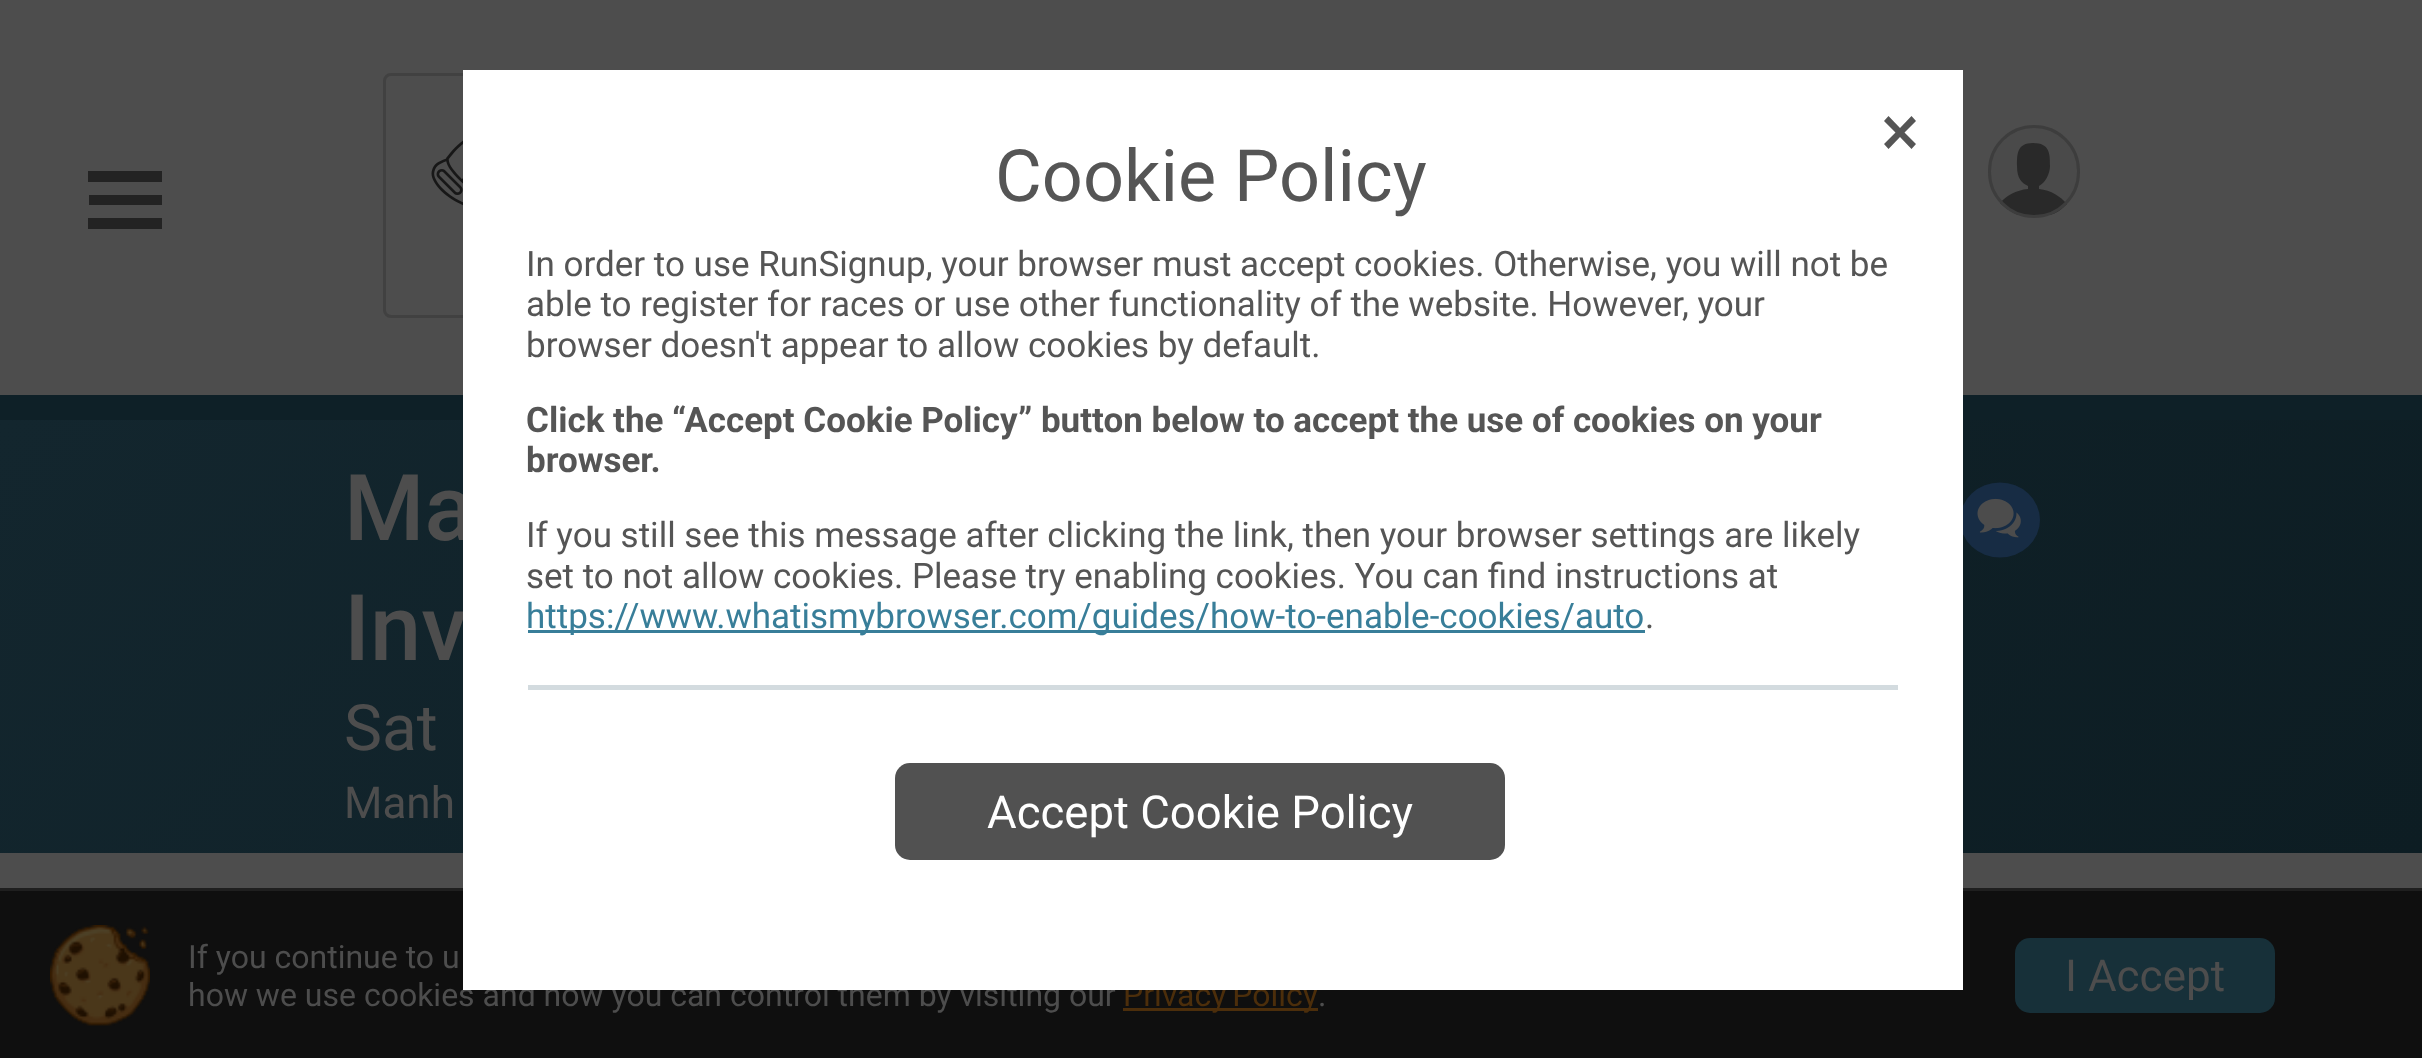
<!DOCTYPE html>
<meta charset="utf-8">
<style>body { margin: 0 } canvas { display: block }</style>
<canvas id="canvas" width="2422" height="1058"></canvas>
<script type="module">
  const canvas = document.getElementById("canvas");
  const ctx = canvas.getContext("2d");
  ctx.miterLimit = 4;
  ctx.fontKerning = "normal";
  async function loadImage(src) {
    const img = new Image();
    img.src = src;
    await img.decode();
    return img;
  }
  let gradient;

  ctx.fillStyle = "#4d4d4d";
  ctx.fillRect(0, 0, 2422, 1058);
  ctx.fillStyle = "#232323";
  ctx.beginPath();
  ctx.moveTo(162, 171);
  ctx.lineTo(162, 182);
  ctx.lineTo(88, 182);
  ctx.lineTo(88, 171);
  ctx.closePath();
  ctx.moveTo(162, 195);
  ctx.lineTo(162, 205);
  ctx.lineTo(89, 205);
  ctx.lineTo(89, 195);
  ctx.closePath();
  ctx.moveTo(162, 218);
  ctx.lineTo(162, 229);
  ctx.lineTo(88, 229);
  ctx.lineTo(88, 218);
  ctx.closePath();
  ctx.fill();
  ctx.beginPath();
  ctx.roundRect(384.5, 74.5, 242, 242, 6.5);
  ctx.strokeStyle = "#414141";
  ctx.lineWidth = 3;
  ctx.stroke();
  ctx.drawImage(await loadImage("img1.png"), 431, 140, 32, 66);
  ctx.save();
  ctx.beginPath();
  ctx.roundRect(1988, 125, 92, 93, 46);
  ctx.clip();
  ctx.fillStyle = "#4a4a4a";
  ctx.fillRect(1990, 128, 88, 87);
  ctx.restore();
  ctx.fillStyle = "#292929";
  ctx.beginPath();
  ctx.moveTo(2039, 189);
  ctx.bezierCurveTo(2051, 190, 2061, 197, 2067, 204);
  ctx.bezierCurveTo(2062, 209, 2057, 213, 2050, 215);
  ctx.lineTo(2018, 215);
  ctx.bezierCurveTo(2011, 212, 2005, 208, 2000, 203);
  ctx.bezierCurveTo(2006, 196, 2016, 190, 2028, 189);
  ctx.lineTo(2028, 186);
  ctx.bezierCurveTo(2022, 183, 2017, 179, 2017, 166);
  ctx.bezierCurveTo(2017, 154, 2017, 143, 2033, 143);
  ctx.bezierCurveTo(2050, 143, 2050, 154, 2050, 166);
  ctx.bezierCurveTo(2050, 174, 2045, 183, 2039, 186);
  ctx.closePath();
  ctx.fill();
  ctx.beginPath();
  ctx.roundRect(1989.5, 126.5, 89, 90, 44.5);
  ctx.strokeStyle = "#3d3d3d";
  ctx.stroke();
  gradient = ctx.createLinearGradient(1925, 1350, 497, -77);
  gradient.addColorStop(0, "#0d1d23");
  gradient.addColorStop(1, "#13262e");
  ctx.fillStyle = gradient;
  ctx.fillRect(0, 420, 2422, 433);
  ctx.fillStyle = "#0e2027";
  ctx.fillRect(0, 395, 2422, 25);
  ctx.font = "500 92px Roboto";
  ctx.fillStyle = "#4d4d4d";
  ctx.fillText("Ma", 344, 540);
  ctx.fillText("Inv", 344, 660);
  ctx.font = "64px Roboto";
  ctx.fillText("Sat", 344, 750);
  ctx.font = "44px Roboto";
  ctx.fillText("Manh", 344, 818);
  ctx.fillStyle = "#172c44";
  ctx.beginPath();
  ctx.ellipse(2000, 520, 40, 37.5, 0, 0, Math.PI * 2);
  ctx.fill();
  ctx.drawImage(await loadImage("img2.png"), 1977, 498, 44, 40);
  ctx.fillStyle = "#0f0f0f";
  ctx.fillRect(0, 891, 2422, 167);
  ctx.fillStyle = "#1f1f1f";
  ctx.fillRect(0, 888, 2422, 3);
  ctx.font = "32px Roboto";
  ctx.fillStyle = "#4d4d4d";
  ctx.fillText("how we use cookies and how you can control them by visiting our", 188, 1006);
  ctx.fillStyle = "#4c2e0b";
  ctx.fillRect(1123, 1008, 195, 3);
  ctx.wordSpacing = "-2px";
  ctx.fillText("Privacy Policy", 1123, 1006);
  ctx.strokeStyle = "#ffffff";
  ctx.strokeRect(464.5, 71.5, 1497, 917);
  ctx.fillStyle = "#ffffff";
  ctx.fillRect(466, 73, 1494, 914);
  ctx.fillStyle = "#555555";
  ctx.beginPath();
  ctx.moveTo(1884, 144);
  ctx.lineTo(1895.5, 132.5);
  ctx.lineTo(1884, 121);
  ctx.lineTo(1888.5, 116);
  ctx.lineTo(1900, 128);
  ctx.lineTo(1911.5, 116);
  ctx.lineTo(1916, 121);
  ctx.lineTo(1904.5, 132.5);
  ctx.lineTo(1916, 144);
  ctx.lineTo(1911.5, 149);
  ctx.lineTo(1900, 137);
  ctx.lineTo(1888.5, 149);
  ctx.closePath();
  ctx.fill();
  ctx.wordSpacing = "0px";
  ctx.font = "72px Roboto";
  ctx.fillText("Cookie Policy", 995, 201);
  ctx.font = "35px Roboto";
  ctx.fillText("In order to use RunSignup, your browser must accept cookies. Otherwise, you will not be", 526, 276);
  ctx.fillText("able to register for races or use other functionality of the website. However, your", 526, 316);
  ctx.fillText("browser doesn't appear to allow cookies by default.", 526, 357);
  ctx.font = "bold 35px Roboto";
  ctx.fillText("Click the “Accept Cookie Policy” button below to accept the use of cookies on your", 526, 432);
  ctx.fillText("browser.", 526, 472);
  ctx.font = "35px Roboto";
  ctx.fillText("If you still see this message after clicking the link, then your browser settings are likely", 526, 547);
  ctx.fillText("set to not allow cookies. Please try enabling cookies. You can find instructions at", 526, 588);
  ctx.fillStyle = "#387e99";
  ctx.fillRect(528, 630, 1117, 3);
  ctx.fillText("https://www.whatismybrowser.com/guides/how-to-enable-cookies/auto", 526, 628);
  ctx.fillStyle = "#555555";
  ctx.fillText(".", 1645, 628);
  ctx.fillStyle = "#d3dbdf";
  ctx.fillRect(528, 685, 1370, 5);
  ctx.fillStyle = "#515151";
  ctx.beginPath();
  ctx.roundRect(895, 763, 610, 97, 15);
  ctx.fill();
  ctx.font = "45.5px Roboto";
  ctx.fillStyle = "#ffffff";
  ctx.fillText("Accept Cookie Policy", 987, 828);
  ctx.drawImage(await loadImage("img3.png"), 50, 925, 100, 101);
  ctx.font = "32px Roboto";
  ctx.fillStyle = "#4d4d4d";
  ctx.fillText("If you continue to u", 188, 968);
  ctx.fillText(".", 1318, 1006);
  ctx.fillStyle = "#173039";
  ctx.beginPath();
  ctx.roundRect(2015, 938, 260, 75, 15);
  ctx.fill();
  ctx.font = "44px Roboto";
  ctx.fillStyle = "#4d4d4d";
  ctx.fillText("I Accept", 2065, 991);
</script>
